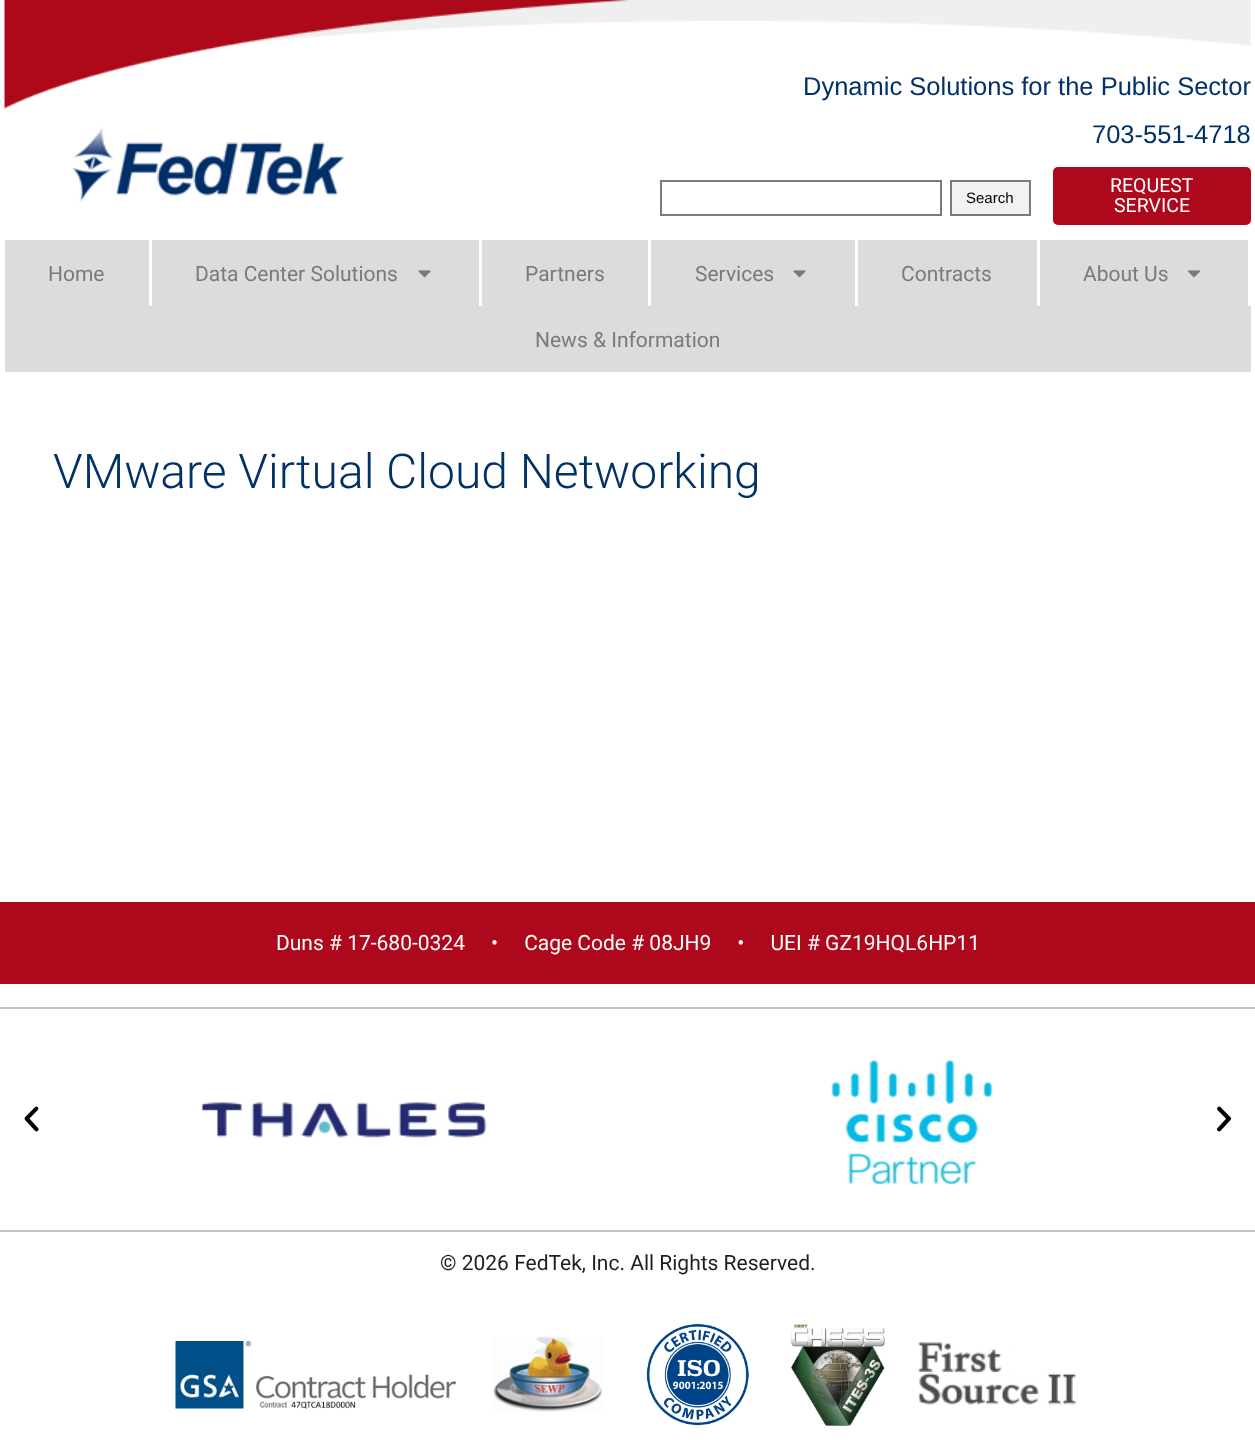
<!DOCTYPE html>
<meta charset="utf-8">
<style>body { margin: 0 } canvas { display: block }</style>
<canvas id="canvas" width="1255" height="1448"></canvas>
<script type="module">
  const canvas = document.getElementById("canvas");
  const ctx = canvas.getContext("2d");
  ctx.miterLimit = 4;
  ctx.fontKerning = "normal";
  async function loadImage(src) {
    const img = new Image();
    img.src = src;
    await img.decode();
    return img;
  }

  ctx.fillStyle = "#ffffff";
  ctx.fillRect(0, 0, 1255, 1448);
  ctx.drawImage(await loadImage("img1.png"), 4, 0, 1247, 110);
  ctx.drawImage(await loadImage("img2.png"), 72, 126, 272, 77);
  ctx.font = "25.5px Liberation Sans";
  ctx.fillStyle = "#023167";
  ctx.fillText("Dynamic Solutions for the Public Sector", 803, 95);
  ctx.fillText("703-551-4718", 1092, 143);
  ctx.strokeStyle = "#7a7a7a";
  ctx.lineWidth = 2;
  ctx.strokeRect(661, 181, 280, 34);
  ctx.fillStyle = "#f2f2f2";
  ctx.beginPath();
  ctx.rect(951, 181, 79, 34);
  ctx.fill();
  ctx.stroke();
  ctx.font = "15px Liberation Sans";
  ctx.fillStyle = "#000000";
  ctx.fillText("Search", 966, 203);
  ctx.fillStyle = "#ad081b";
  ctx.beginPath();
  ctx.roundRect(1053, 167, 198, 58, 5);
  ctx.fill();
  ctx.font = "19.5px Roboto";
  ctx.fillStyle = "#ffffff";
  ctx.fillText("REQUEST", 1110, 192);
  ctx.fillText("SERVICE", 1114, 212);
  ctx.fillStyle = "#dddcdc";
  ctx.fillRect(5, 240, 1246, 132);
  ctx.font = "21px Roboto";
  ctx.fillStyle = "#7a7a7a";
  ctx.fillText("Home", 48, 281);
  ctx.fillStyle = "#ffffff";
  ctx.fillRect(149, 240, 3, 66);
  ctx.fillStyle = "#7a7a7a";
  ctx.fillText("Data Center Solutions", 195, 281);
  ctx.drawImage(await loadImage("img3.png"), 418, 270, 13, 8);
  ctx.fillStyle = "#ffffff";
  ctx.fillRect(479, 240, 3, 66);
  ctx.fillStyle = "#7a7a7a";
  ctx.fillText("Partners", 525, 281);
  ctx.fillStyle = "#ffffff";
  ctx.fillRect(648, 240, 3, 66);
  ctx.fillStyle = "#7a7a7a";
  ctx.fillText("Services", 695, 281);
  ctx.drawImage(await loadImage("img3.png"), 793, 270, 13, 8);
  ctx.fillStyle = "#ffffff";
  ctx.fillRect(855, 240, 3, 66);
  ctx.fillStyle = "#7a7a7a";
  ctx.fillText("Contracts", 901, 281);
  ctx.fillStyle = "#ffffff";
  ctx.fillRect(1037, 240, 3, 66);
  ctx.fillStyle = "#7a7a7a";
  ctx.fillText("About Us", 1083, 281);
  ctx.drawImage(await loadImage("img4.png"), 1188, 270, 12, 8);
  ctx.fillStyle = "#ffffff";
  ctx.fillRect(1248, 240, 3, 66);
  ctx.fillStyle = "#7a7a7a";
  ctx.fillText("News & Information", 535, 347);
  ctx.font = "300 48px Roboto";
  ctx.fillStyle = "#023167";
  ctx.fillText("VMware Virtual Cloud Networking", 53, 488);
  ctx.fillStyle = "#ad081b";
  ctx.fillRect(0, 902, 1255, 82);
  ctx.font = "21px Roboto";
  ctx.fillStyle = "#ffffff";
  ctx.fillText("Duns # 17-680-0324     •     Cage Code # 08JH9     •     UEI # GZ19HQL6HP11", 276, 950);
  ctx.fillStyle = "#c3c3c3";
  ctx.fillRect(0, 1007, 1255, 2);
  ctx.drawImage(await loadImage("img5.png"), 24, 1106, 15, 26);
  ctx.drawImage(await loadImage("img6.png"), 201, 1102, 286, 36);
  ctx.drawImage(await loadImage("img7.png"), 830, 1060, 163, 125);
  ctx.drawImage(await loadImage("img8.png"), 1217, 1106, 14, 26);
  ctx.fillRect(0, 1230, 1255, 2);
  ctx.fillStyle = "#1f1f1f";
  ctx.fillText("© 2026 FedTek, Inc. All Rights Reserved.", 440, 1270);
  ctx.drawImage(await loadImage("img9.png"), 175, 1341, 281, 68);
  ctx.drawImage(await loadImage("img10.png"), 493, 1336, 110, 76);
  ctx.drawImage(await loadImage("img11.png"), 646, 1323, 103, 103);
  ctx.drawImage(await loadImage("img12.png"), 790, 1324, 95, 103);
  ctx.drawImage(await loadImage("img13.png"), 917, 1342, 159, 63);
</script>
